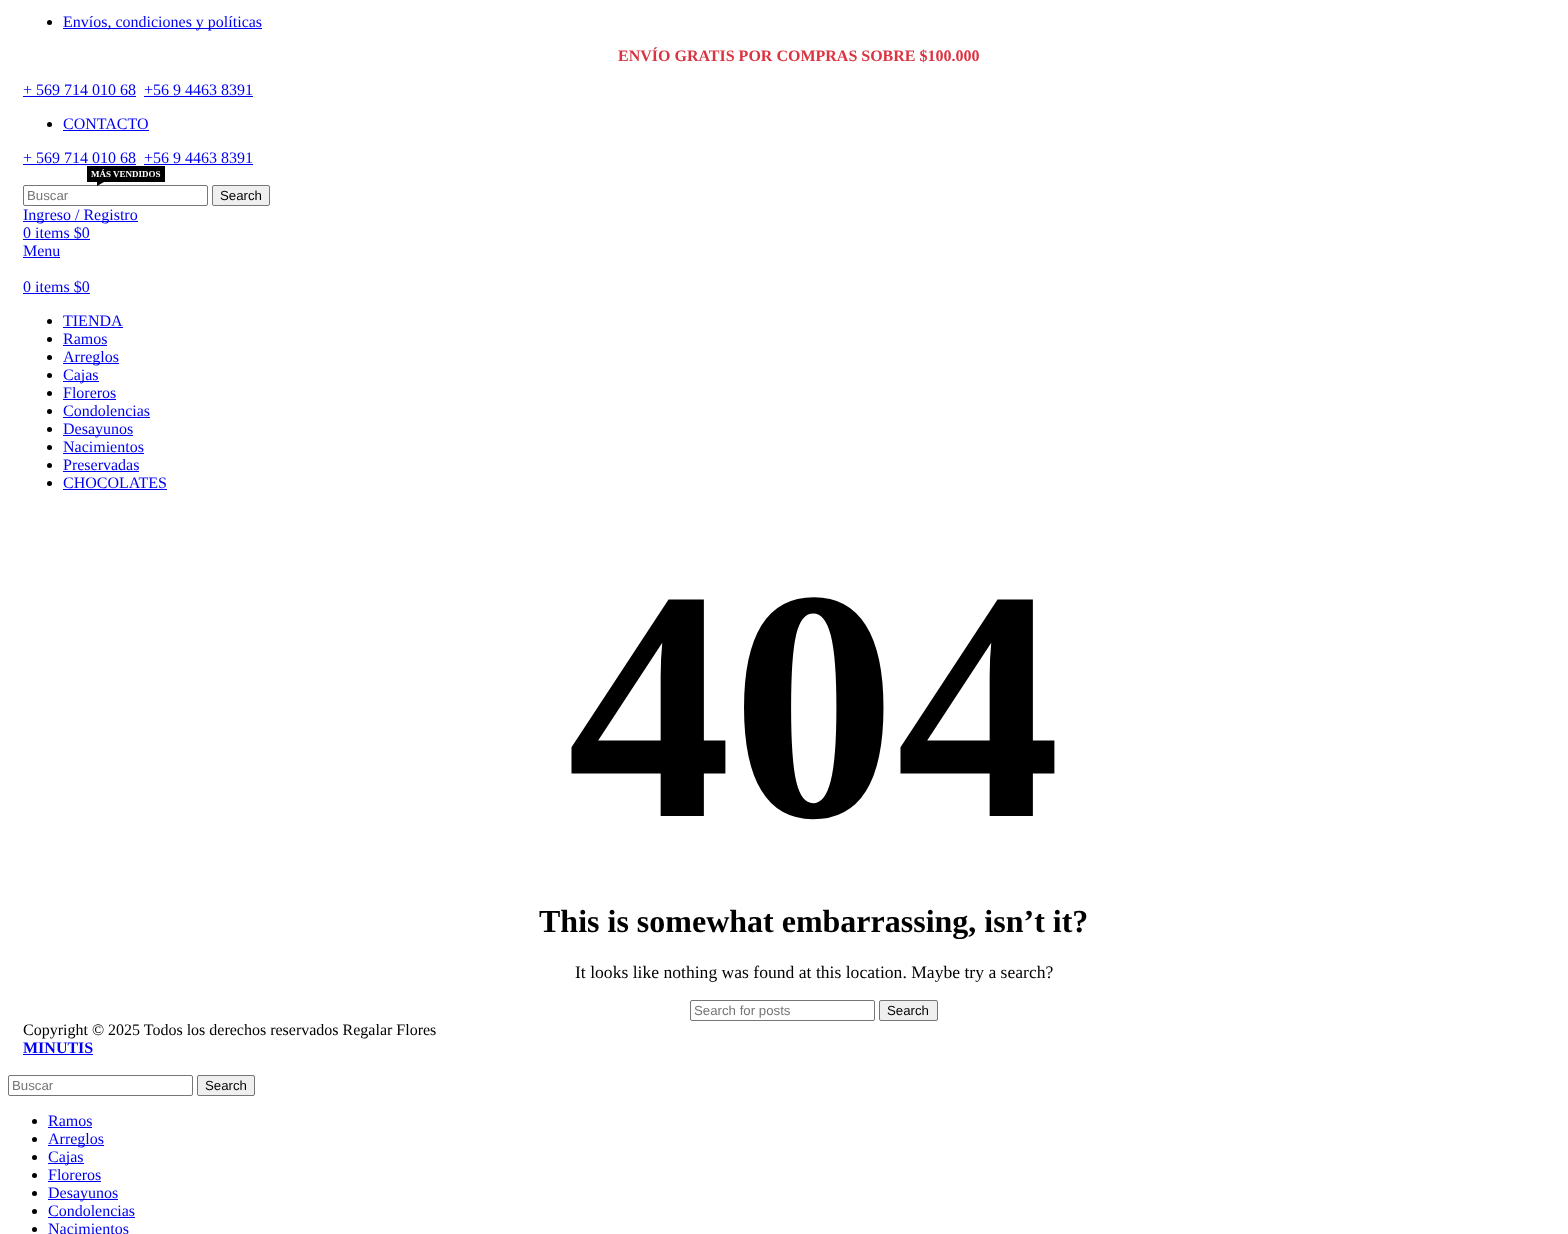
<!DOCTYPE html>
<meta charset="utf-8">
<style>body { margin: 0 } canvas { display: block }</style>
<canvas id="canvas" width="1568" height="1234"></canvas>
<script type="module">
  const canvas = document.getElementById("canvas");
  const ctx = canvas.getContext("2d");
  ctx.miterLimit = 4;
  ctx.fontKerning = "normal";

  ctx.fillStyle = "#ffffff";
  ctx.fillRect(0, 0, 1568, 1234);
  ctx.fillStyle = "#000000";
  ctx.beginPath();
  ctx.arc(49.5, 22.5, 2.5, 0, Math.PI * 2);
  ctx.fill();
  ctx.fillStyle = "#0000ee";
  ctx.fillRect(63, 28, 199, 1);
  ctx.font = "16px Liberation Serif";
  ctx.fillText("Envíos, condiciones y políticas", 63, 27);
  ctx.font = "bold 16px Liberation Serif";
  ctx.fillStyle = "#db3340";
  ctx.fillText("ENVÍO GRATIS POR COMPRAS SOBRE $100.000", 618, 61);
  ctx.font = "16px Liberation Serif";
  ctx.fillStyle = "#0000ee";
  ctx.fillText("+ 569 714 010 68", 23, 95);
  ctx.fillRect(23, 96, 113, 1);
  ctx.fillText("+56 9 4463 8391", 144, 95);
  ctx.fillRect(144, 96, 109, 1);
  ctx.fillStyle = "#000000";
  ctx.beginPath();
  ctx.arc(49.5, 124.5, 2.5, 0, Math.PI * 2);
  ctx.fill();
  ctx.fillStyle = "#0000ee";
  ctx.fillText("CONTACTO", 63, 129);
  ctx.fillRect(63, 130, 86, 1);
  ctx.fillText("+ 569 714 010 68", 23, 163);
  ctx.fillRect(23, 164, 113, 1);
  ctx.fillText("+56 9 4463 8391", 144, 163);
  ctx.fillRect(144, 164, 109, 1);
  ctx.fillStyle = "#000000";
  ctx.beginPath();
  ctx.arc(49.5, 339.5, 2.5, 0, Math.PI * 2);
  ctx.fill();
  ctx.fillRect(87, 166, 78, 16);
  ctx.font = "bold 9px Liberation Serif";
  ctx.fillStyle = "#ffffff";
  ctx.fillText("MÁS VENDIDOS", 91, 177);
  ctx.beginPath();
  ctx.roundRect(23.5, 185.5, 184, 20, 1.5);
  ctx.strokeStyle = "#767676";
  ctx.stroke();
  ctx.fillStyle = "#000000";
  ctx.beginPath();
  ctx.moveTo(97, 182);
  ctx.lineTo(104, 182);
  ctx.lineTo(97, 186);
  ctx.closePath();
  ctx.fill();
  ctx.font = "16px Liberation Serif";
  ctx.fillStyle = "#0000ee";
  ctx.fillText("Ramos", 63, 344);
  ctx.fillRect(63, 345, 44, 1);
  ctx.fillStyle = "#000000";
  ctx.beginPath();
  ctx.arc(49.5, 321.5, 2.5, 0, Math.PI * 2);
  ctx.fill();
  ctx.fillStyle = "#0000ee";
  ctx.fillText("TIENDA", 63, 326);
  ctx.fillRect(63, 327, 60, 1);
  ctx.fillStyle = "#000000";
  ctx.beginPath();
  ctx.arc(49.5, 357.5, 2.5, 0, Math.PI * 2);
  ctx.fill();
  ctx.fillStyle = "#0000ee";
  ctx.fillRect(63, 363, 56, 1);
  ctx.fillText("Arreglos", 63, 362);
  ctx.fillStyle = "#000000";
  ctx.beginPath();
  ctx.arc(49.5, 375.5, 2.5, 0, Math.PI * 2);
  ctx.fill();
  ctx.fillStyle = "#0000ee";
  ctx.fillRect(63, 381, 36, 1);
  ctx.fillText("Cajas", 63, 380);
  ctx.fillStyle = "#000000";
  ctx.beginPath();
  ctx.arc(49.5, 393.5, 2.5, 0, Math.PI * 2);
  ctx.fill();
  ctx.fillStyle = "#0000ee";
  ctx.fillText("Floreros", 63, 398);
  ctx.fillRect(63, 399, 53, 1);
  ctx.fillStyle = "#000000";
  ctx.beginPath();
  ctx.arc(49.5, 411.5, 2.5, 0, Math.PI * 2);
  ctx.fill();
  ctx.fillStyle = "#0000ee";
  ctx.fillText("Condolencias", 63, 416);
  ctx.fillRect(63, 417, 87, 1);
  ctx.fillStyle = "#000000";
  ctx.beginPath();
  ctx.arc(49.5, 429.5, 2.5, 0, Math.PI * 2);
  ctx.fill();
  ctx.fillStyle = "#0000ee";
  ctx.fillRect(63, 435, 70, 1);
  ctx.fillText("Desayunos", 63, 434);
  ctx.fillStyle = "#000000";
  ctx.beginPath();
  ctx.arc(49.5, 447.5, 2.5, 0, Math.PI * 2);
  ctx.fill();
  ctx.fillStyle = "#0000ee";
  ctx.fillText("Nacimientos", 63, 452);
  ctx.fillRect(63, 453, 81, 1);
  ctx.fillStyle = "#000000";
  ctx.beginPath();
  ctx.arc(49.5, 465.5, 2.5, 0, Math.PI * 2);
  ctx.fill();
  ctx.fillStyle = "#0000ee";
  ctx.fillText("Preservadas", 63, 470);
  ctx.fillRect(63, 471, 76, 1);
  ctx.fillStyle = "#000000";
  ctx.beginPath();
  ctx.arc(49.5, 483.5, 2.5, 0, Math.PI * 2);
  ctx.fill();
  ctx.fillStyle = "#0000ee";
  ctx.fillText("CHOCOLATES", 63, 488);
  ctx.fillRect(63, 489, 104, 1);
  ctx.font = "13.25px Liberation Sans";
  ctx.fillStyle = "#757575";
  ctx.fillText("Buscar", 27, 200);
  ctx.fillStyle = "#efefef";
  ctx.beginPath();
  ctx.roundRect(212.5, 185.5, 57, 20, 1.5);
  ctx.fill();
  ctx.stroke();
  ctx.fillStyle = "#000000";
  ctx.fillText("Search", 220, 200);
  ctx.fillStyle = "#0000ee";
  ctx.fillRect(23, 221, 115, 1);
  ctx.font = "16px Liberation Serif";
  ctx.fillText("Ingreso / Registro", 23, 220);
  ctx.fillRect(23, 239, 67, 1);
  ctx.fillText("0 items $0", 23, 238);
  ctx.fillText("Menu", 23, 256);
  ctx.fillRect(23, 257, 37, 1);
  ctx.fillRect(23, 293, 67, 1);
  ctx.fillText("0 items $0", 23, 292);
  ctx.font = "bold 329px Liberation Serif";
  ctx.fillStyle = "#000000";
  ctx.fillText("404", 567, 816);
  ctx.font = "bold 32px Liberation Serif";
  ctx.fillText("This is somewhat embarrassing, isn’t it?", 539, 932);
  ctx.font = "17.6px Liberation Serif";
  ctx.fillText("It looks like nothing was found at this location. Maybe try a search?", 575, 978);
  ctx.beginPath();
  ctx.roundRect(690.5, 1000.5, 184, 20, 1.5);
  ctx.stroke();
  ctx.font = "13.25px Liberation Sans";
  ctx.fillStyle = "#757575";
  ctx.fillText("Search for posts", 694, 1015);
  ctx.fillStyle = "#efefef";
  ctx.beginPath();
  ctx.roundRect(879.5, 1000.5, 58, 20, 1.5);
  ctx.fill();
  ctx.stroke();
  ctx.fillStyle = "#000000";
  ctx.fillText("Search", 887, 1015);
  ctx.font = "16px Liberation Serif";
  ctx.fillText("Copyright © 2025 Todos los derechos reservados Regalar Flores", 23, 1035);
  ctx.font = "bold 16px Liberation Serif";
  ctx.fillStyle = "#0000ee";
  ctx.fillText("MINUTIS", 23, 1053);
  ctx.fillRect(23, 1054, 70, 1);
  ctx.beginPath();
  ctx.roundRect(8.5, 1075.5, 184, 20, 1.5);
  ctx.stroke();
  ctx.font = "13.25px Liberation Sans";
  ctx.fillStyle = "#757575";
  ctx.fillText("Buscar", 12, 1090);
  ctx.fillStyle = "#efefef";
  ctx.beginPath();
  ctx.roundRect(197.5, 1075.5, 57, 20, 1.5);
  ctx.fill();
  ctx.stroke();
  ctx.fillStyle = "#000000";
  ctx.fillText("Search", 205, 1090);
  ctx.beginPath();
  ctx.arc(34.5, 1121.5, 2.5, 0, Math.PI * 2);
  ctx.fill();
  ctx.font = "16px Liberation Serif";
  ctx.fillStyle = "#0000ee";
  ctx.fillText("Ramos", 48, 1126);
  ctx.fillRect(48, 1127, 44, 1);
  ctx.fillStyle = "#000000";
  ctx.beginPath();
  ctx.arc(34.5, 1139.5, 2.5, 0, Math.PI * 2);
  ctx.fill();
  ctx.fillStyle = "#0000ee";
  ctx.fillRect(48, 1145, 56, 1);
  ctx.fillText("Arreglos", 48, 1144);
  ctx.fillStyle = "#000000";
  ctx.beginPath();
  ctx.arc(34.5, 1157.5, 2.5, 0, Math.PI * 2);
  ctx.fill();
  ctx.fillStyle = "#0000ee";
  ctx.fillRect(48, 1163, 36, 1);
  ctx.fillText("Cajas", 48, 1162);
  ctx.fillStyle = "#000000";
  ctx.beginPath();
  ctx.arc(34.5, 1175.5, 2.5, 0, Math.PI * 2);
  ctx.fill();
  ctx.fillStyle = "#0000ee";
  ctx.fillText("Floreros", 48, 1180);
  ctx.fillRect(48, 1181, 53, 1);
  ctx.fillStyle = "#000000";
  ctx.beginPath();
  ctx.arc(34.5, 1193.5, 2.5, 0, Math.PI * 2);
  ctx.fill();
  ctx.fillStyle = "#0000ee";
  ctx.fillRect(48, 1199, 70, 1);
  ctx.fillText("Desayunos", 48, 1198);
  ctx.fillStyle = "#000000";
  ctx.beginPath();
  ctx.arc(34.5, 1211.5, 2.5, 0, Math.PI * 2);
  ctx.fill();
  ctx.fillStyle = "#0000ee";
  ctx.fillText("Condolencias", 48, 1216);
  ctx.fillRect(48, 1217, 87, 1);
  ctx.fillStyle = "#000000";
  ctx.beginPath();
  ctx.arc(34.5, 1229.5, 2.5, 0, Math.PI * 2);
  ctx.fill();
  ctx.fillStyle = "#0000ee";
  ctx.fillText("Nacimientos", 48, 1234);
</script>
